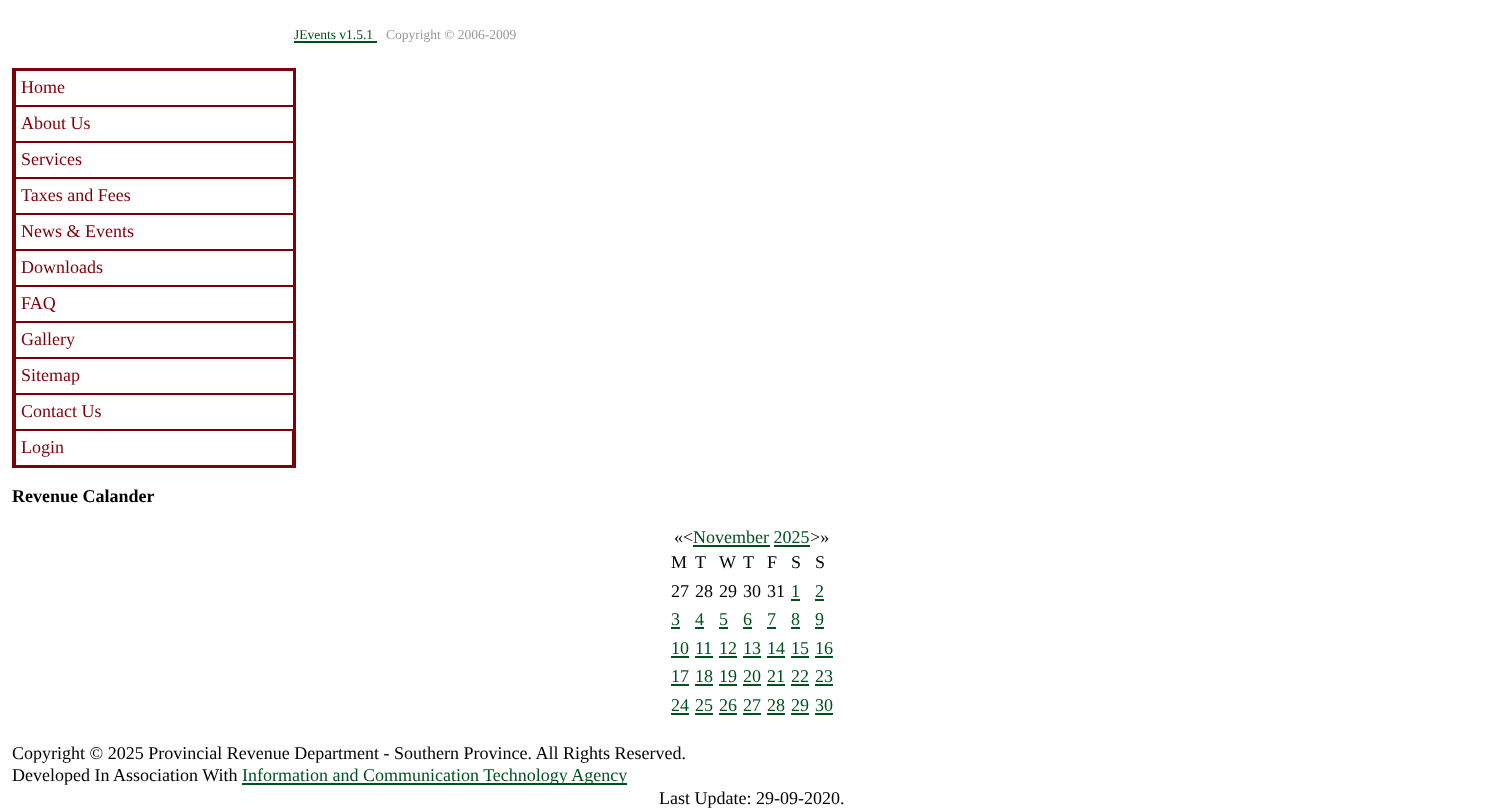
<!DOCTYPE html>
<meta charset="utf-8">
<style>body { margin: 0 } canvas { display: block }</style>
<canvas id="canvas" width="1503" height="810"></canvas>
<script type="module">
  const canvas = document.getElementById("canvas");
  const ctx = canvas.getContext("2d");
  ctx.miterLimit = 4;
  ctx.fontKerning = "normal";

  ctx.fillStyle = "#ffffff";
  ctx.fillRect(0, 0, 1503, 810);
  ctx.font = "13.5px Liberation Serif";
  ctx.fillStyle = "#005120";
  ctx.fillText("JEvents v1.5.1", 294, 39);
  ctx.fillRect(294, 41, 83, 2);
  ctx.fillStyle = "#999999";
  ctx.fillText("Copyright © 2006-2009", 386, 39);
  ctx.strokeStyle = "#7b0009";
  ctx.lineWidth = 2;
  ctx.strokeRect(13, 69, 282, 398);
  ctx.fillStyle = "#7b0009";
  ctx.fillRect(14, 70, 280, 1);
  ctx.fillRect(293, 69, 1, 36);
  ctx.fillRect(14, 69, 2, 36);
  ctx.font = "18px Liberation Serif";
  ctx.fillText("Home", 21, 93);
  ctx.fillRect(14, 105, 280, 2);
  ctx.fillRect(293, 105, 1, 36);
  ctx.fillRect(14, 105, 2, 36);
  ctx.fillText("About Us", 21, 129);
  ctx.fillRect(14, 141, 280, 2);
  ctx.fillRect(293, 141, 1, 36);
  ctx.fillRect(14, 141, 2, 36);
  ctx.fillText("Services", 21, 165);
  ctx.fillRect(14, 177, 280, 2);
  ctx.fillRect(293, 177, 1, 36);
  ctx.fillRect(14, 177, 2, 36);
  ctx.fillText("Taxes and Fees", 21, 201);
  ctx.fillRect(14, 213, 280, 2);
  ctx.fillRect(293, 213, 1, 36);
  ctx.fillRect(14, 213, 2, 36);
  ctx.fillText("News & Events", 21, 237);
  ctx.fillRect(14, 249, 280, 2);
  ctx.fillRect(293, 249, 1, 36);
  ctx.fillRect(14, 249, 2, 36);
  ctx.fillText("Downloads", 21, 273);
  ctx.fillRect(14, 285, 280, 2);
  ctx.fillRect(293, 285, 1, 36);
  ctx.fillRect(14, 285, 2, 36);
  ctx.fillText("FAQ", 21, 309);
  ctx.fillRect(14, 321, 280, 2);
  ctx.fillRect(293, 321, 1, 36);
  ctx.fillRect(14, 321, 2, 36);
  ctx.fillText("Gallery", 21, 345);
  ctx.fillRect(14, 357, 280, 2);
  ctx.fillRect(293, 357, 1, 36);
  ctx.fillRect(14, 357, 2, 36);
  ctx.fillText("Sitemap", 21, 381);
  ctx.fillRect(14, 393, 280, 2);
  ctx.fillRect(293, 393, 1, 36);
  ctx.fillRect(14, 393, 2, 36);
  ctx.fillText("Contact Us", 21, 417);
  ctx.strokeRect(15, 430, 278, 36);
  ctx.fillText("Login", 21, 453);
  ctx.font = "bold 18px Liberation Serif";
  ctx.fillStyle = "#000000";
  ctx.fillText("Revenue Calander", 12, 502);
  ctx.font = "18px Liberation Serif";
  ctx.fillText("«<", 674, 543);
  ctx.fillStyle = "#005120";
  ctx.fillText("November 2025", 693, 543);
  ctx.fillRect(693, 545, 77, 2);
  ctx.fillRect(774, 545, 36, 2);
  ctx.fillStyle = "#000000";
  ctx.fillText(">»", 810, 543);
  ctx.fillText("M", 671, 568);
  ctx.fillText("T", 695, 568);
  ctx.fillText("W", 719, 568);
  ctx.fillText("T", 743, 568);
  ctx.fillText("F", 767, 568);
  ctx.fillText("S", 791, 568);
  ctx.fillText("S", 815, 568);
  ctx.fillText("27", 671, 597);
  ctx.fillText("28", 695, 597);
  ctx.fillText("29", 719, 597);
  ctx.fillText("30", 743, 597);
  ctx.fillText("31", 767, 597);
  ctx.fillStyle = "#005120";
  ctx.fillText("1", 791, 597);
  ctx.fillRect(791, 599, 9, 2);
  ctx.fillText("2", 815, 597);
  ctx.fillRect(815, 599, 9, 2);
  ctx.fillText("3", 671, 625);
  ctx.fillRect(671, 627, 9, 2);
  ctx.fillText("4", 695, 625);
  ctx.fillRect(695, 627, 9, 2);
  ctx.fillText("5", 719, 625);
  ctx.fillRect(719, 627, 9, 2);
  ctx.fillText("6", 743, 625);
  ctx.fillRect(743, 627, 9, 2);
  ctx.fillText("7", 767, 625);
  ctx.fillRect(767, 627, 9, 2);
  ctx.fillText("8", 791, 625);
  ctx.fillRect(791, 627, 9, 2);
  ctx.fillText("9", 815, 625);
  ctx.fillRect(815, 627, 9, 2);
  ctx.fillText("10", 671, 654);
  ctx.fillRect(671, 656, 18, 2);
  ctx.fillText("11", 695, 654);
  ctx.fillRect(695, 656, 18, 2);
  ctx.fillText("12", 719, 654);
  ctx.fillRect(719, 656, 18, 2);
  ctx.fillText("13", 743, 654);
  ctx.fillRect(743, 656, 18, 2);
  ctx.fillText("14", 767, 654);
  ctx.fillRect(767, 656, 18, 2);
  ctx.fillText("15", 791, 654);
  ctx.fillRect(791, 656, 18, 2);
  ctx.fillText("16", 815, 654);
  ctx.fillRect(815, 656, 18, 2);
  ctx.fillText("17", 671, 682);
  ctx.fillRect(671, 684, 18, 2);
  ctx.fillText("18", 695, 682);
  ctx.fillRect(695, 684, 18, 2);
  ctx.fillText("19", 719, 682);
  ctx.fillRect(719, 684, 18, 2);
  ctx.fillText("20", 743, 682);
  ctx.fillRect(743, 684, 18, 2);
  ctx.fillText("21", 767, 682);
  ctx.fillRect(767, 684, 18, 2);
  ctx.fillText("22", 791, 682);
  ctx.fillRect(791, 684, 18, 2);
  ctx.fillText("23", 815, 682);
  ctx.fillRect(815, 684, 18, 2);
  ctx.fillText("24", 671, 711);
  ctx.fillRect(671, 713, 18, 2);
  ctx.fillText("25", 695, 711);
  ctx.fillRect(695, 713, 18, 2);
  ctx.fillText("26", 719, 711);
  ctx.fillRect(719, 713, 18, 2);
  ctx.fillText("27", 743, 711);
  ctx.fillRect(743, 713, 18, 2);
  ctx.fillText("28", 767, 711);
  ctx.fillRect(767, 713, 18, 2);
  ctx.fillText("29", 791, 711);
  ctx.fillRect(791, 713, 18, 2);
  ctx.fillText("30", 815, 711);
  ctx.fillRect(815, 713, 18, 2);
  ctx.fillStyle = "#000000";
  ctx.fillText("Copyright © 2025 Provincial Revenue Department - Southern Province. All Rights Reserved.", 12, 759);
  ctx.fillText("Developed In Association With", 12, 781);
  ctx.fillStyle = "#005120";
  ctx.fillRect(242, 783, 385, 2);
  ctx.fillText("Information and Communication Technology Agency", 242, 781);
  ctx.fillStyle = "#000000";
  ctx.fillText("Last Update: 29-09-2020.", 659, 804);
</script>
